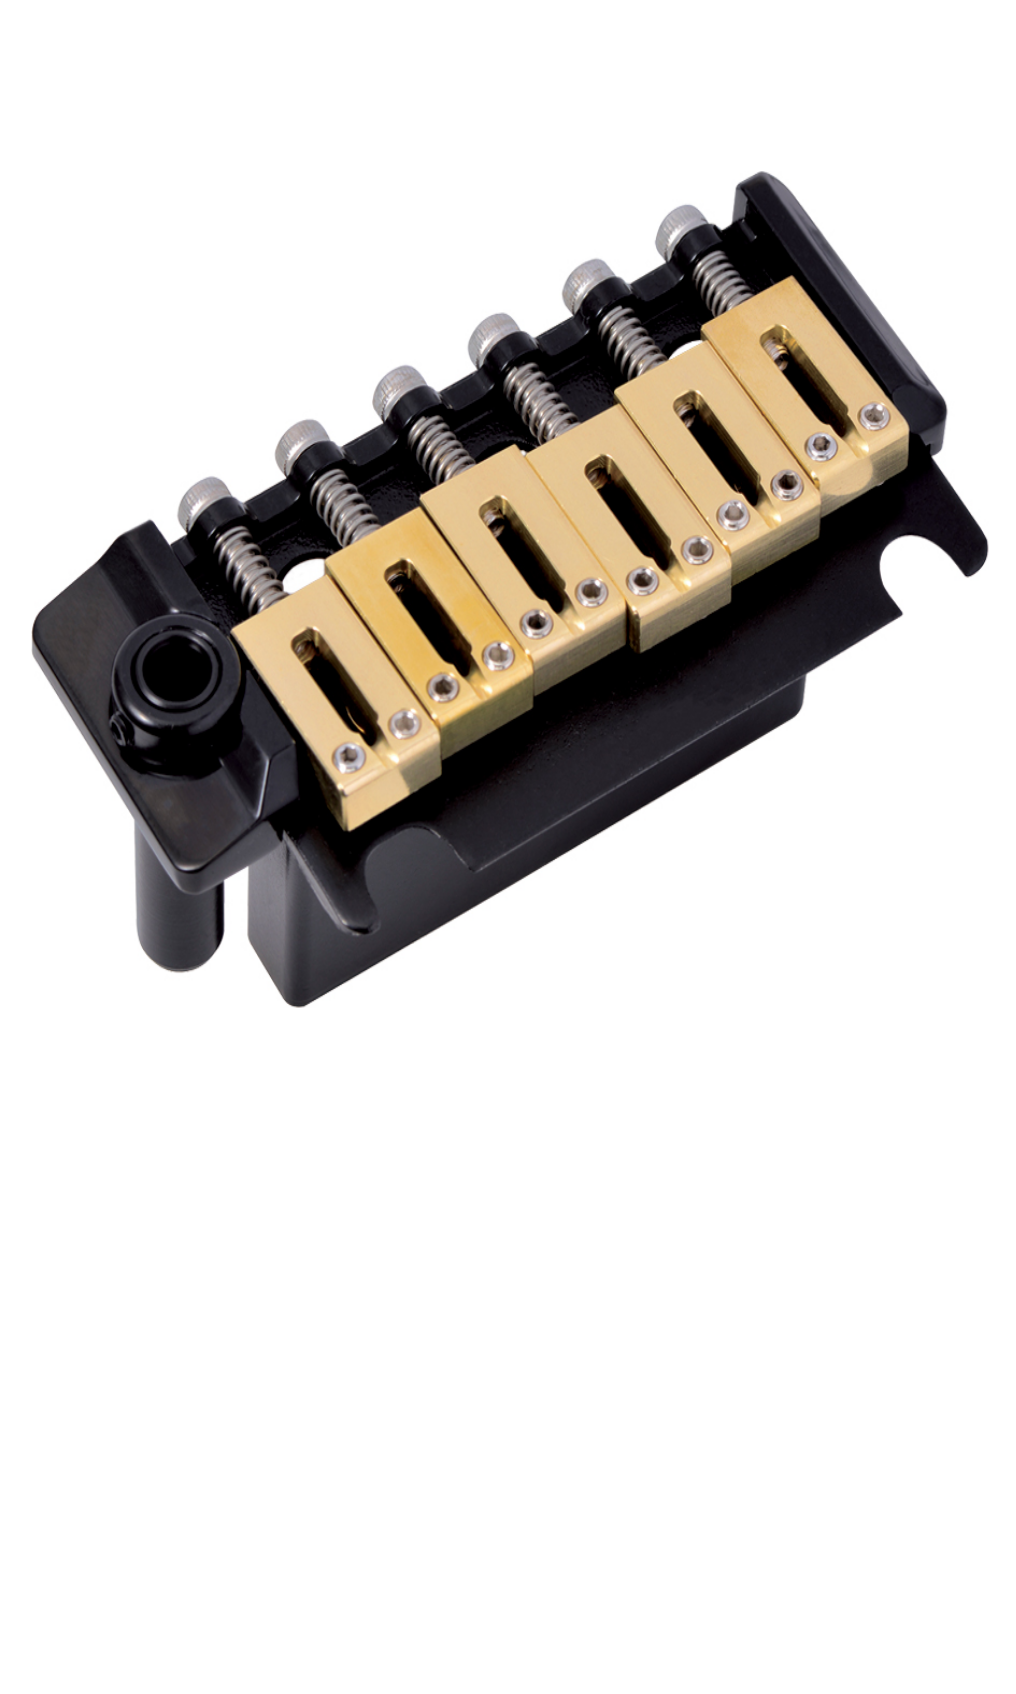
<!DOCTYPE html>
<meta charset="utf-8">
<style>body { margin: 0 } canvas { display: block }</style>
<canvas id="canvas" width="1016" height="1694"></canvas>
<script type="module">
  const canvas = document.getElementById("canvas");
  const ctx = canvas.getContext("2d");
  ctx.miterLimit = 4;
  ctx.fontKerning = "normal";
  async function loadImage(src) {
    const img = new Image();
    img.src = src;
    await img.decode();
    return img;
  }

  ctx.fillStyle = "#ffffff";
  ctx.fillRect(0, 0, 1016, 1694);
  ctx.drawImage(await loadImage("img1.png"), 31, 171, 958, 837);
</script>
